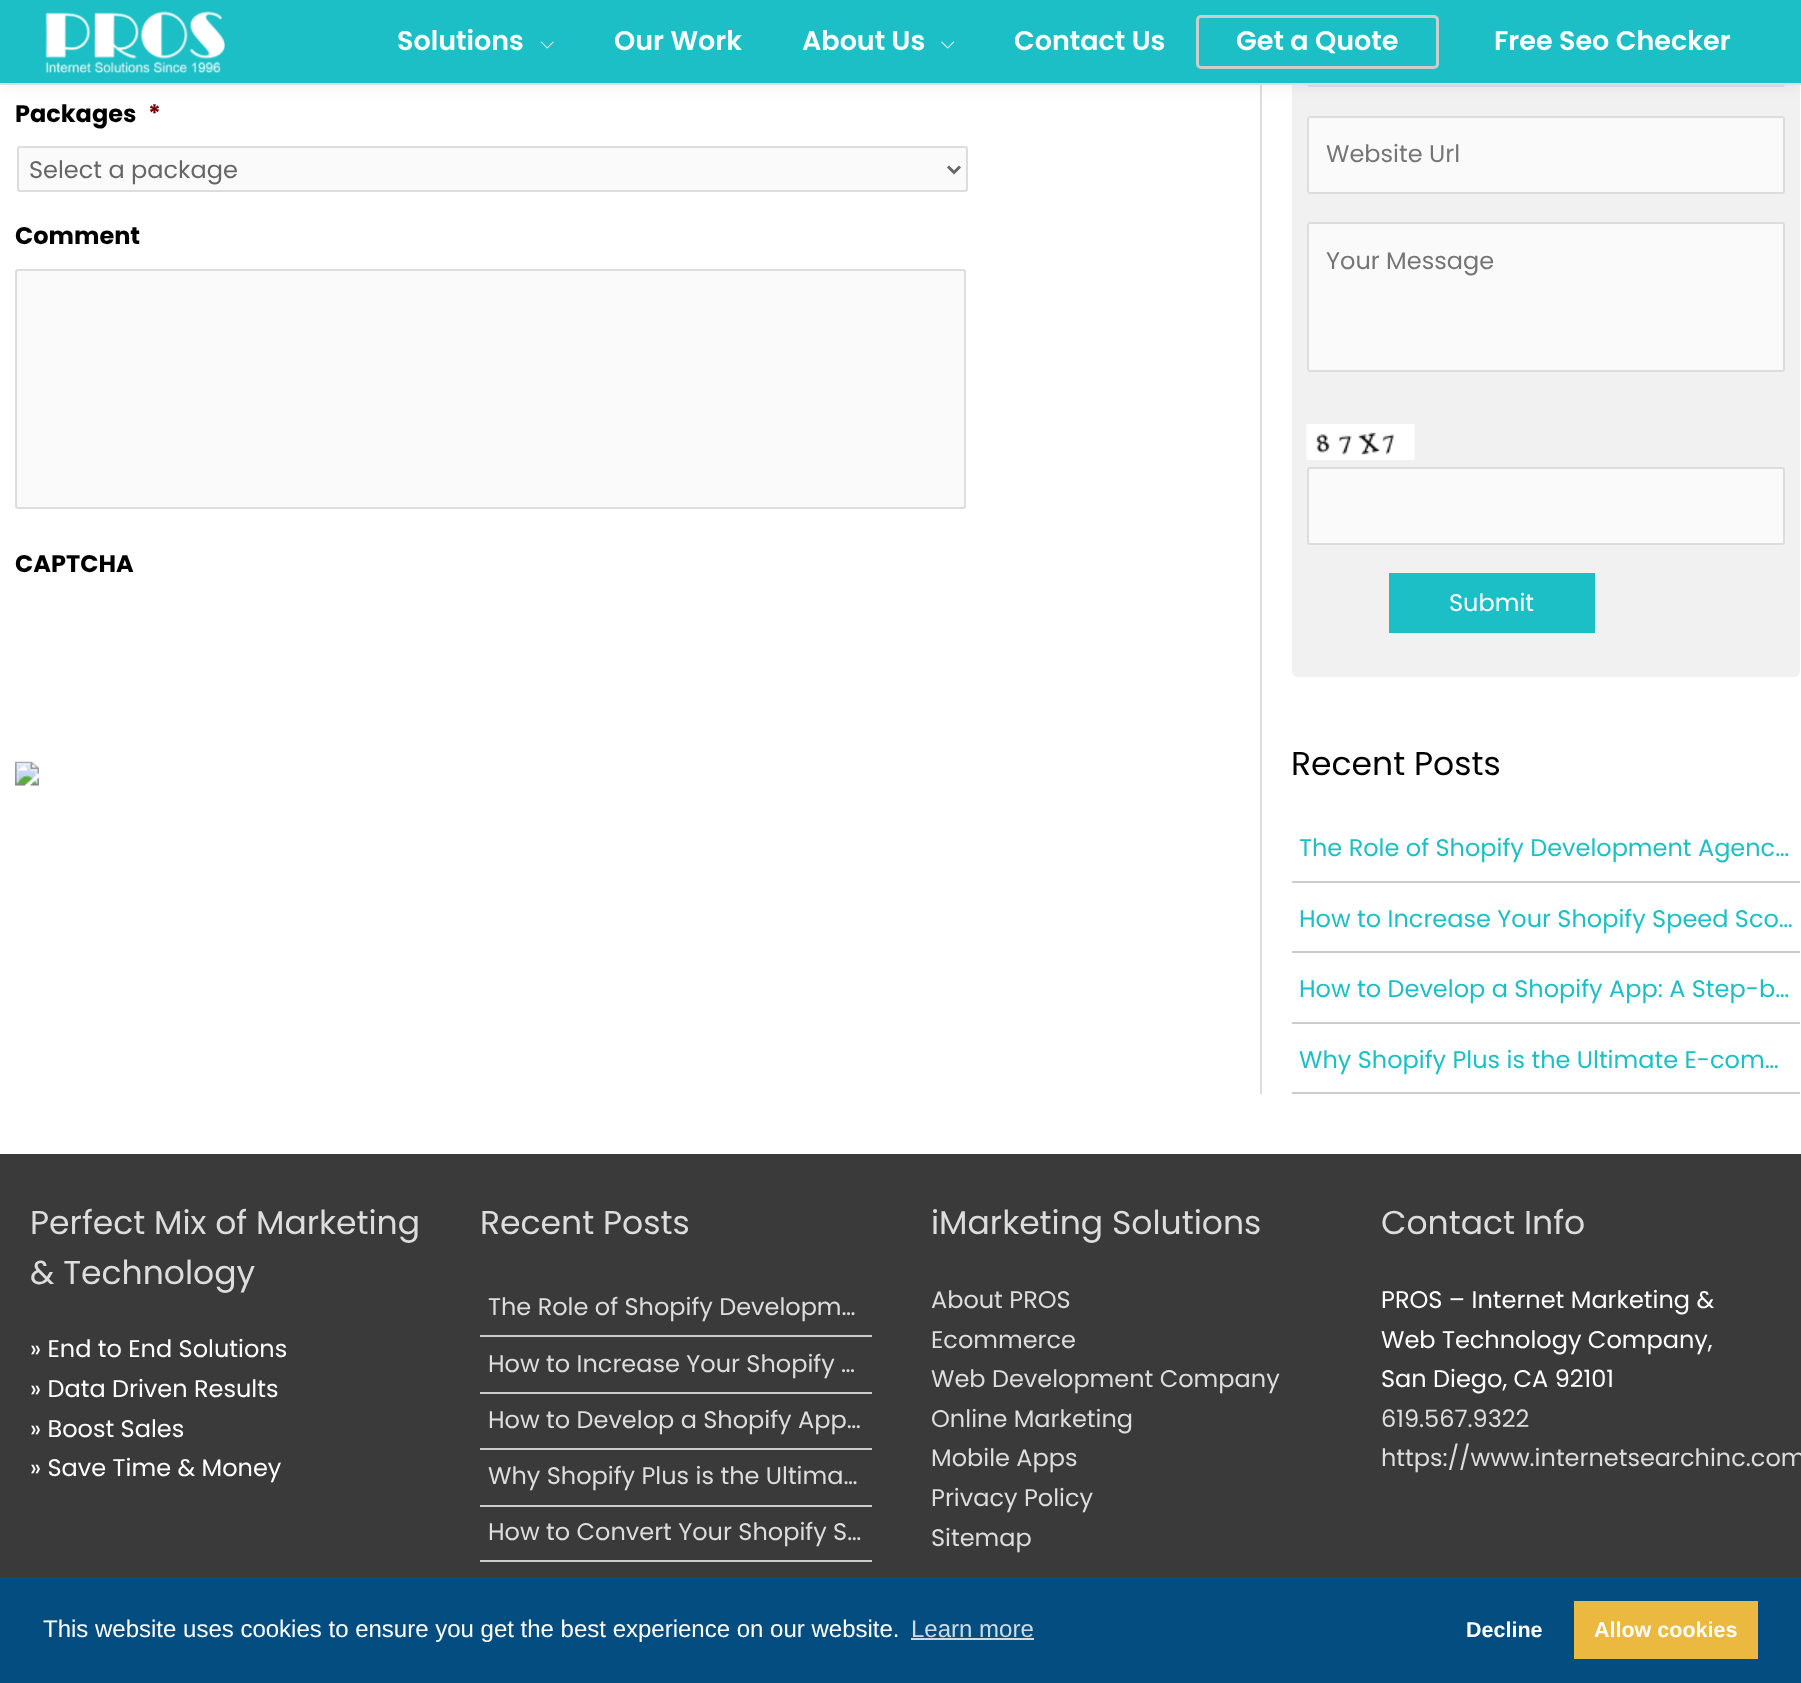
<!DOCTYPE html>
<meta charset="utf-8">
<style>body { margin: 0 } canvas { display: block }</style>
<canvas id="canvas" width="1801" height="1683"></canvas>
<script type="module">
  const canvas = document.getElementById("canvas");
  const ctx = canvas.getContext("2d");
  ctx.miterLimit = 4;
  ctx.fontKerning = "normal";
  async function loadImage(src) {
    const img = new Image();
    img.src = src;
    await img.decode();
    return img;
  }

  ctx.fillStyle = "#ffffff";
  ctx.fillRect(0, 0, 1801, 1683);
  ctx.fillStyle = "#dddddd";
  ctx.fillRect(1260, 85, 2, 1009);
  ctx.fillStyle = "#f1f1f1";
  ctx.beginPath();
  ctx.roundRect(1292, -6, 508, 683, 6);
  ctx.fill();
  ctx.beginPath();
  ctx.roundRect(1308, 9, 476, 77, 2);
  ctx.strokeStyle = "#dddddd";
  ctx.lineWidth = 2;
  ctx.stroke();
  ctx.fillStyle = "rgba(36, 50, 66, 0.07)";
  ctx.filter = "blur(7.5px)";
  ctx.beginPath();
  ctx.rect(0, 3, 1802, 84);
  ctx.fill();
  ctx.filter = "none";
  ctx.fillStyle = "#1bbfc5";
  ctx.fillRect(0, 0, 1801, 83);
  ctx.fillStyle = "#dddddd";
  ctx.fillRect(0, 83, 1801, 2);
  ctx.drawImage(await loadImage("img1.png"), 45, 11, 180, 63);
  ctx.font = "600 27px Poppins";
  ctx.fillStyle = "#ffffff";
  ctx.fillText("Solutions", 397, 50);
  ctx.drawImage(await loadImage("img2.png"), 540, 41, 14, 8);
  ctx.fillText("Our Work", 614, 50);
  ctx.fillText("About Us", 802, 50);
  ctx.drawImage(await loadImage("img3.png"), 941, 41, 14, 8);
  ctx.fillText("Contact Us", 1014, 50);
  ctx.beginPath();
  ctx.roundRect(1197.5, 16.5, 240, 51, 3.5);
  ctx.strokeStyle = "#cccccc";
  ctx.lineWidth = 3;
  ctx.stroke();
  ctx.fillText("Get a Quote", 1236, 50);
  ctx.fillText("Free Seo Checker", 1494, 50);
  ctx.font = "bold 24px Poppins";
  ctx.fillStyle = "#000000";
  ctx.fillText("Packages", 15, 122);
  ctx.fillStyle = "#790000";
  ctx.fillText("*", 148, 122);
  ctx.fillStyle = "#fafafa";
  ctx.beginPath();
  ctx.roundRect(18, 147, 949, 44, 2);
  ctx.fill();
  ctx.strokeStyle = "#dddddd";
  ctx.lineWidth = 2;
  ctx.stroke();
  ctx.beginPath();
  ctx.moveTo(948, 166.5);
  ctx.lineTo(954, 172.5);
  ctx.lineTo(960, 166.5);
  ctx.strokeStyle = "#666666";
  ctx.lineWidth = 3;
  ctx.stroke();
  ctx.font = "24px Poppins";
  ctx.fillStyle = "#666666";
  ctx.fillText("Select a package", 29, 178);
  ctx.font = "bold 24px Poppins";
  ctx.fillStyle = "#000000";
  ctx.fillText("Comment", 15, 244);
  ctx.fillStyle = "#fafafa";
  ctx.beginPath();
  ctx.roundRect(16, 270, 949, 238, 2);
  ctx.fill();
  ctx.strokeStyle = "#dddddd";
  ctx.lineWidth = 2;
  ctx.stroke();
  ctx.fillStyle = "#000000";
  ctx.fillText("CAPTCHA", 15, 572);
  ctx.drawImage(await loadImage("img4.png"), 15, 761, 24, 25);
  ctx.fillStyle = "#fafafa";
  ctx.beginPath();
  ctx.roundRect(1308, 117, 476, 76, 2);
  ctx.fill();
  ctx.stroke();
  ctx.font = "24px Poppins";
  ctx.fillStyle = "#757575";
  ctx.fillText("Website Url", 1326, 162);
  ctx.fillStyle = "#fafafa";
  ctx.beginPath();
  ctx.roundRect(1308, 223, 476, 148, 2);
  ctx.fill();
  ctx.stroke();
  ctx.fillStyle = "#757575";
  ctx.fillText("Your Message", 1326, 269);
  ctx.drawImage(await loadImage("img5.png"), 1306, 424, 109, 36);
  ctx.fillStyle = "#fafafa";
  ctx.beginPath();
  ctx.roundRect(1308, 468, 476, 76, 2);
  ctx.fill();
  ctx.stroke();
  ctx.fillStyle = "#1bbfc5";
  ctx.fillRect(1389, 573, 206, 60);
  ctx.fillStyle = "#ffffff";
  ctx.fillText("Submit", 1449, 611);
  ctx.font = "33px Poppins";
  ctx.fillStyle = "#000000";
  ctx.fillText("Recent Posts", 1291, 775);
  ctx.fillStyle = "#cccccc";
  ctx.fillRect(1292, 881, 508, 2);
  ctx.font = "24px Poppins";
  ctx.fillStyle = "#1bbfc5";
  ctx.fillText("The Role of Shopify Development Agenc…", 1299, 856);
  ctx.fillStyle = "#cccccc";
  ctx.fillRect(1292, 951, 508, 2);
  ctx.fillStyle = "#1bbfc5";
  ctx.fillText("How to Increase Your Shopify Speed Sco…", 1299, 927);
  ctx.fillStyle = "#cccccc";
  ctx.fillRect(1292, 1022, 508, 2);
  ctx.fillStyle = "#1bbfc5";
  ctx.fillText("How to Develop a Shopify App: A Step-b…", 1299, 997);
  ctx.fillStyle = "#cccccc";
  ctx.fillRect(1292, 1092, 508, 2);
  ctx.fillStyle = "#1bbfc5";
  ctx.fillText("Why Shopify Plus is the Ultimate E-com…", 1299, 1068);
  ctx.fillStyle = "#3a3a3a";
  ctx.fillRect(0, 1154, 1801, 423);
  ctx.font = "33px Poppins";
  ctx.fillStyle = "#dddddd";
  ctx.fillText("Perfect Mix of Marketing", 30, 1234);
  ctx.fillText("& Technology", 30, 1284);
  ctx.font = "24px Poppins";
  ctx.fillStyle = "#ffffff";
  ctx.fillText("» End to End Solutions", 30, 1357);
  ctx.fillText("» Data Driven Results", 30, 1397);
  ctx.fillText("» Boost Sales", 30, 1437);
  ctx.fillText("» Save Time & Money", 30, 1476);
  ctx.font = "33px Poppins";
  ctx.fillStyle = "#dddddd";
  ctx.fillText("Recent Posts", 480, 1234);
  ctx.fillStyle = "#cccccc";
  ctx.fillRect(480, 1335, 392, 2);
  ctx.font = "24px Poppins";
  ctx.fillStyle = "#dddddd";
  ctx.fillText("The Role of Shopify Developm…", 488, 1315);
  ctx.fillStyle = "#cccccc";
  ctx.fillRect(480, 1392, 392, 2);
  ctx.fillStyle = "#dddddd";
  ctx.fillText("How to Increase Your Shopify …", 488, 1372);
  ctx.fillStyle = "#cccccc";
  ctx.fillRect(480, 1448, 392, 2);
  ctx.fillStyle = "#dddddd";
  ctx.fillText("How to Develop a Shopify App…", 488, 1428);
  ctx.fillStyle = "#cccccc";
  ctx.fillRect(480, 1505, 392, 2);
  ctx.fillStyle = "#dddddd";
  ctx.fillText("Why Shopify Plus is the Ultima…", 488, 1484);
  ctx.fillStyle = "#cccccc";
  ctx.fillRect(480, 1560, 392, 2);
  ctx.fillStyle = "#dddddd";
  ctx.fillText("How to Convert Your Shopify S…", 488, 1540);
  ctx.font = "33px Poppins";
  ctx.fillText("iMarketing Solutions", 931, 1234);
  ctx.font = "24px Poppins";
  ctx.fillText("About PROS", 931, 1308);
  ctx.fillText("Ecommerce", 931, 1348);
  ctx.fillText("Web Development Company", 931, 1387);
  ctx.fillText("Online Marketing", 931, 1427);
  ctx.fillText("Mobile Apps", 931, 1466);
  ctx.fillText("Privacy Policy", 931, 1506);
  ctx.fillText("Sitemap", 931, 1546);
  ctx.font = "33px Poppins";
  ctx.fillText("Contact Info", 1381, 1234);
  ctx.font = "24px Poppins";
  ctx.fillStyle = "#ffffff";
  ctx.fillText("PROS – Internet Marketing &", 1381, 1308);
  ctx.fillText("Web Technology Company,", 1381, 1348);
  ctx.fillText("San Diego, CA 92101", 1381, 1387);
  ctx.fillStyle = "#dddddd";
  ctx.fillText("619.567.9322", 1381, 1427);
  ctx.fillText("https://www.internetsearchinc.com", 1381, 1466);
  ctx.fillStyle = "#044d80";
  ctx.fillRect(0, 1577, 1801, 106);
  ctx.font = "24px Liberation Sans";
  ctx.fillStyle = "#ffffff";
  ctx.fillText("This website uses cookies to ensure you get the best experience on our website.", 43, 1637);
  ctx.fillStyle = "#cddbe6";
  ctx.fillText("Learn more", 911, 1637);
  ctx.fillRect(911, 1638, 123, 2);
  ctx.font = "bold 21.5px Liberation Sans";
  ctx.fillStyle = "#ffffff";
  ctx.fillText("Decline", 1466, 1637);
  ctx.fillStyle = "#ecb940";
  ctx.fillRect(1574, 1601, 184, 58);
  ctx.fillStyle = "#ffffff";
  ctx.fillText("Allow cookies", 1594, 1637);
</script>
